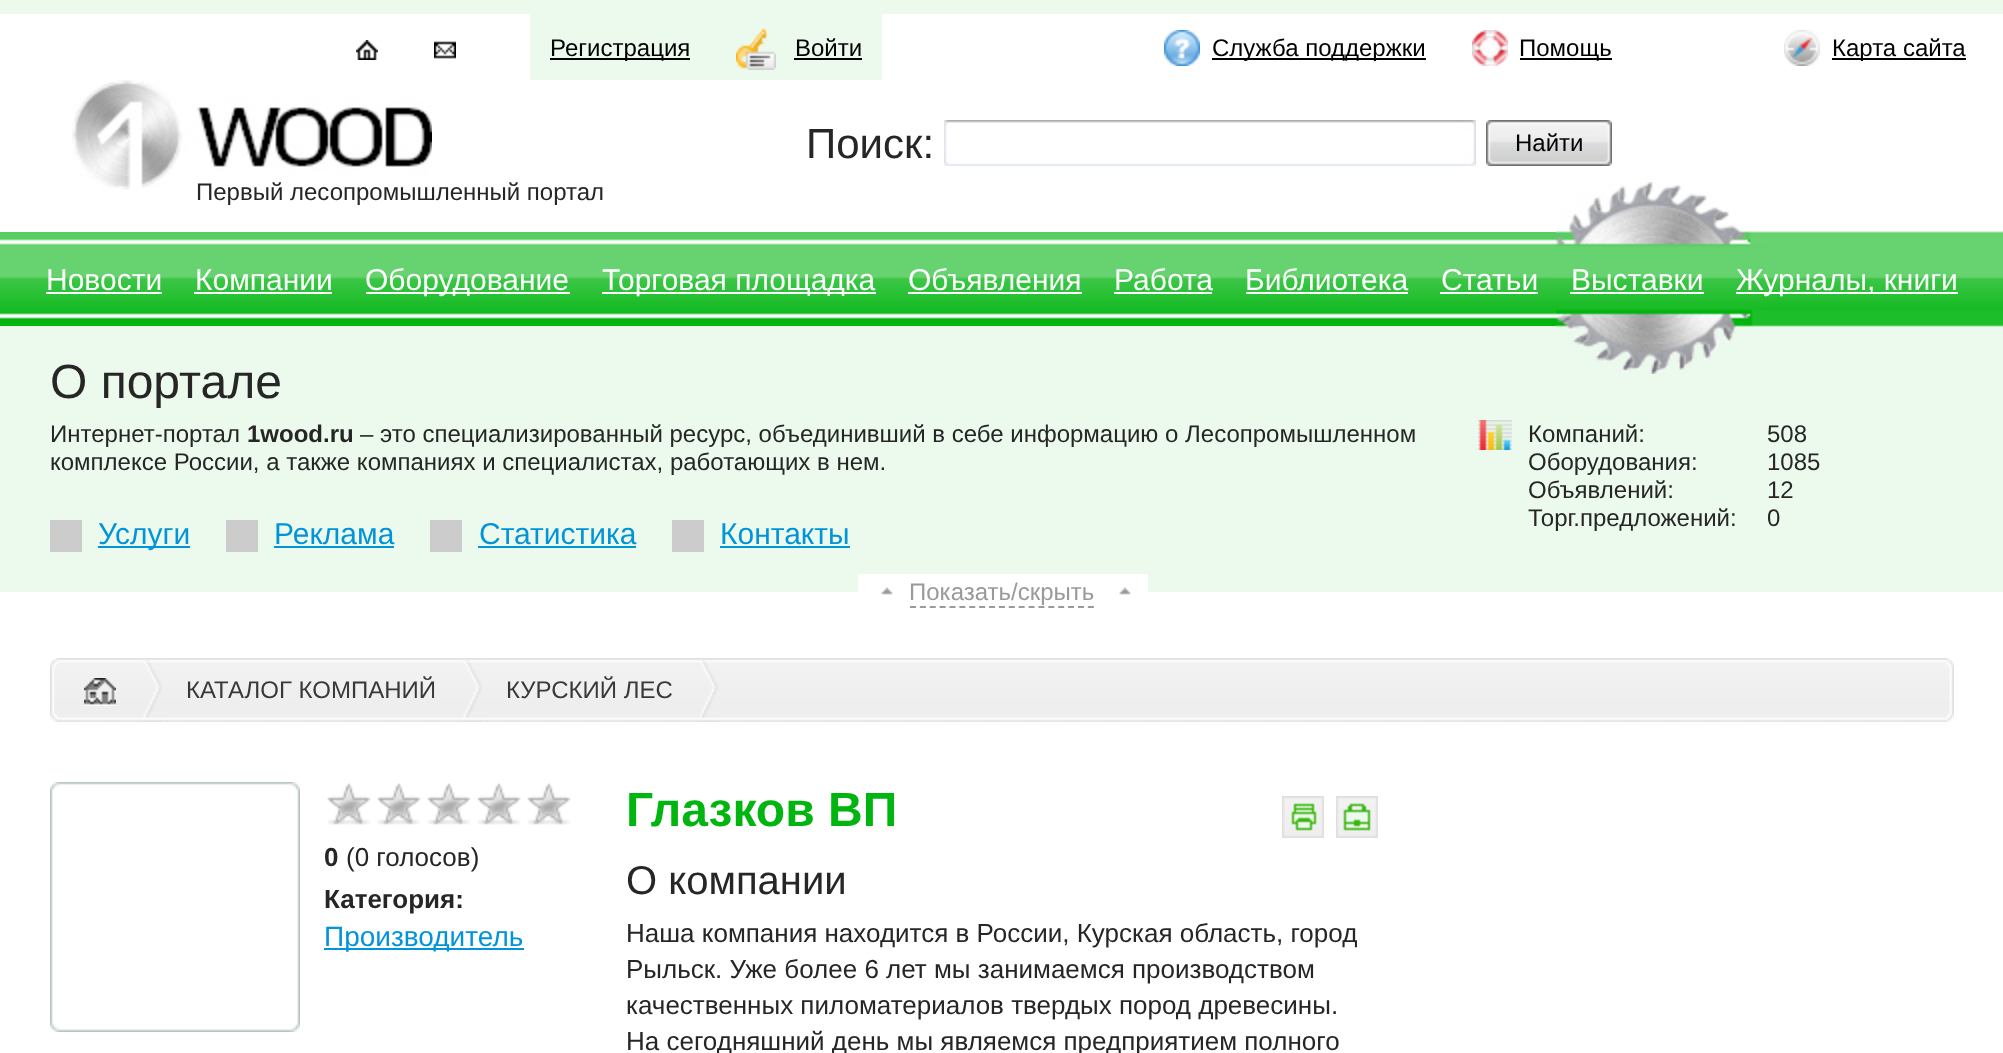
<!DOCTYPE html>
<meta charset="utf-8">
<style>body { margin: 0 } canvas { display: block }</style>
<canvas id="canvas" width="2003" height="1053"></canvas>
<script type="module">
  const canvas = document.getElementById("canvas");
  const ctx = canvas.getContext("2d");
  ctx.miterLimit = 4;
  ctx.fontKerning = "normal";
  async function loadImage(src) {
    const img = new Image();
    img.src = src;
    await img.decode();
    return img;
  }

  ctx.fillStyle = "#ffffff";
  ctx.fillRect(0, 0, 2003, 1053);
  ctx.fillStyle = "#ebfaed";
  ctx.fillRect(0, 0, 2003, 14);
  ctx.drawImage(await loadImage("img1.png"), 356, 40, 22, 20);
  ctx.drawImage(await loadImage("img2.png"), 434, 41, 22, 18);
  ctx.fillStyle = "#ecfaed";
  ctx.fillRect(530, 14, 352, 66);
  ctx.fillStyle = "#000000";
  ctx.fillRect(550, 58, 140, 2);
  ctx.font = "24px Liberation Sans";
  ctx.fillText("Регистрация", 550, 56);
  ctx.drawImage(await loadImage("img3.png"), 736, 28, 40, 42);
  ctx.fillText("Войти", 795, 56);
  ctx.fillRect(794, 58, 68, 2);
  ctx.drawImage(await loadImage("img4.png"), 1164, 30, 36, 36);
  ctx.fillRect(1212, 58, 214, 2);
  ctx.fillText("Служба поддержки", 1212, 56);
  ctx.drawImage(await loadImage("img5.png"), 1472, 30, 36, 36);
  ctx.fillRect(1520, 58, 92, 2);
  ctx.fillText("Помощь", 1519, 56);
  ctx.drawImage(await loadImage("img6.png"), 1784, 30, 36, 36);
  ctx.fillRect(1832, 58, 134, 2);
  ctx.fillText("Карта сайта", 1832, 56);
  ctx.drawImage(await loadImage("img7.png"), 72, 80, 360, 110);
  ctx.font = "42px Liberation Sans";
  ctx.fillStyle = "#262626";
  ctx.fillText("Поиск:", 806, 158);
  ctx.drawImage(await loadImage("img8.png"), 944, 120, 532, 46);
  ctx.drawImage(await loadImage("img9.png"), 1486, 120, 126, 46);
  ctx.font = "24px Liberation Sans";
  ctx.fillStyle = "#000000";
  ctx.fillText("Найти", 1515, 151);
  ctx.fillStyle = "#262626";
  ctx.fillText("Первый лесопромышленный портал", 196, 200);
  ctx.drawImage(await loadImage("img10.png"), 0, 232, 1556, 94);
  ctx.fillStyle = "#ecfaed";
  ctx.fillRect(0, 326, 2003, 266);
  ctx.drawImage(await loadImage("img11.png"), 1556, 182, 447, 192);
  ctx.font = "30px Liberation Sans";
  ctx.fillStyle = "#ffffff";
  ctx.fillText("Новости", 46, 290);
  ctx.fillRect(46, 292, 116, 2);
  ctx.fillText("Компании", 195, 290);
  ctx.fillRect(194, 292, 138, 2);
  ctx.fillRect(366, 292, 204, 2);
  ctx.fillText("Оборудование", 365, 290);
  ctx.fillRect(602, 292, 274, 2);
  ctx.fillText("Торговая площадка", 602, 290);
  ctx.fillText("Объявления", 908, 290);
  ctx.fillRect(908, 292, 174, 2);
  ctx.fillText("Работа", 1114, 290);
  ctx.fillRect(1114, 292, 98, 2);
  ctx.fillText("Библиотека", 1245, 290);
  ctx.fillRect(1246, 292, 162, 2);
  ctx.fillText("Статьи", 1441, 290);
  ctx.fillRect(1440, 292, 98, 2);
  ctx.fillText("Выставки", 1571, 290);
  ctx.fillRect(1570, 292, 134, 2);
  ctx.fillRect(1736, 292, 222, 2);
  ctx.fillText("Журналы, книги", 1736, 290);
  ctx.font = "48px Liberation Sans";
  ctx.fillStyle = "#262626";
  ctx.fillText("О портале", 50, 398);
  ctx.font = "24px Liberation Sans";
  ctx.fillText("Интернет-портал", 50, 442);
  ctx.font = "bold 24px Liberation Sans";
  ctx.fillText("1wood.ru", 247, 442);
  ctx.font = "24px Liberation Sans";
  ctx.fillText("– это специализированный ресурс, объединивший в себе информацию о Лесопромышленном", 360, 442);
  ctx.fillText("комплексе России, а также компаниях и специалистах, работающих в нем.", 50, 470);
  ctx.fillStyle = "#cccccc";
  ctx.fillRect(50, 520, 32, 32);
  ctx.fillStyle = "#0194d9";
  ctx.fillRect(98, 546, 92, 2);
  ctx.font = "30px Liberation Sans";
  ctx.fillText("Услуги", 98, 544);
  ctx.fillStyle = "#cccccc";
  ctx.fillRect(226, 520, 32, 32);
  ctx.fillStyle = "#0194d9";
  ctx.fillText("Реклама", 274, 544);
  ctx.fillRect(274, 546, 120, 2);
  ctx.fillStyle = "#cccccc";
  ctx.fillRect(430, 520, 32, 32);
  ctx.fillStyle = "#0194d9";
  ctx.fillText("Статистика", 479, 544);
  ctx.fillRect(478, 546, 158, 2);
  ctx.fillStyle = "#cccccc";
  ctx.fillRect(672, 520, 32, 32);
  ctx.fillStyle = "#0194d9";
  ctx.fillText("Контакты", 720, 544);
  ctx.fillRect(720, 546, 130, 2);
  ctx.drawImage(await loadImage("img12.png"), 1478, 420, 34, 30);
  ctx.font = "24px Liberation Sans";
  ctx.fillStyle = "#262626";
  ctx.fillText("Компаний:", 1528, 442);
  ctx.fillText("508", 1767, 442);
  ctx.fillText("Оборудования:", 1528, 470);
  ctx.fillText("1085", 1767, 470);
  ctx.fillText("Объявлений:", 1528, 498);
  ctx.fillText("12", 1767, 498);
  ctx.fillText("Торг.предложений:", 1528, 526);
  ctx.fillText("0", 1767, 526);
  ctx.fillStyle = "#ffffff";
  ctx.fillRect(858, 574, 290, 18);
  ctx.drawImage(await loadImage("img13.png"), 881, 587, 250, 8);
  ctx.fillStyle = "#9a9a9a";
  ctx.fillText("Показать/скрыть", 909, 600);
  ctx.beginPath();
  ctx.moveTo(910, 607);
  ctx.lineTo(1094, 607);
  ctx.strokeStyle = "#9a9a9a";
  ctx.lineWidth = 2;
  ctx.setLineDash([6, 3.88]);
  ctx.stroke();
  ctx.drawImage(await loadImage("img14.png"), 58, 658, 1888, 64);
  ctx.drawImage(await loadImage("img15.png"), 50, 658, 8, 64);
  ctx.drawImage(await loadImage("img16.png"), 1946, 658, 8, 64);
  ctx.drawImage(await loadImage("img17.png"), 142, 660, 20, 62);
  ctx.drawImage(await loadImage("img18.png"), 84, 678, 32, 28);
  ctx.drawImage(await loadImage("img17.png"), 462, 660, 20, 62);
  ctx.fillStyle = "#393939";
  ctx.fillText("КАТАЛОГ КОМПАНИЙ", 186, 698);
  ctx.drawImage(await loadImage("img19.png"), 700, 660, 18, 62);
  ctx.fillText("КУРСКИЙ ЛЕС", 506, 698);
  ctx.drawImage(await loadImage("img20.png"), 50, 782, 250, 250);
  ctx.drawImage(await loadImage("img21.png"), 327, 783, 244, 42);
  ctx.font = "bold 26px Liberation Sans";
  ctx.fillStyle = "#262626";
  ctx.fillText("0", 324, 866);
  ctx.font = "26px Liberation Sans";
  ctx.fillText("(0 голосов)", 346, 866);
  ctx.font = "bold 26px Liberation Sans";
  ctx.fillText("Категория:", 324, 908);
  ctx.fillStyle = "#0194d9";
  ctx.fillRect(324, 948, 200, 2);
  ctx.font = "28px Liberation Sans";
  ctx.fillText("Производитель", 324, 946);
  ctx.font = "bold 48px Liberation Sans";
  ctx.fillStyle = "#00b50f";
  ctx.fillText("Глазков ВП", 626, 826);
  ctx.drawImage(await loadImage("img22.png"), 1282, 796, 42, 42);
  ctx.drawImage(await loadImage("img23.png"), 1336, 796, 42, 42);
  ctx.font = "40px Liberation Sans";
  ctx.fillStyle = "#262626";
  ctx.fillText("О компании", 626, 894);
  ctx.font = "26px Liberation Sans";
  ctx.fillText("Наша компания находится в России, Курская область, город", 626, 942);
  ctx.fillText("Рыльск. Уже более 6 лет мы занимаемся производством", 626, 978);
  ctx.fillText("качественных пиломатериалов твердых пород древесины.", 626, 1014);
  ctx.fillText("На сегодняшний день мы являемся предприятием полного", 626, 1050);
</script>
